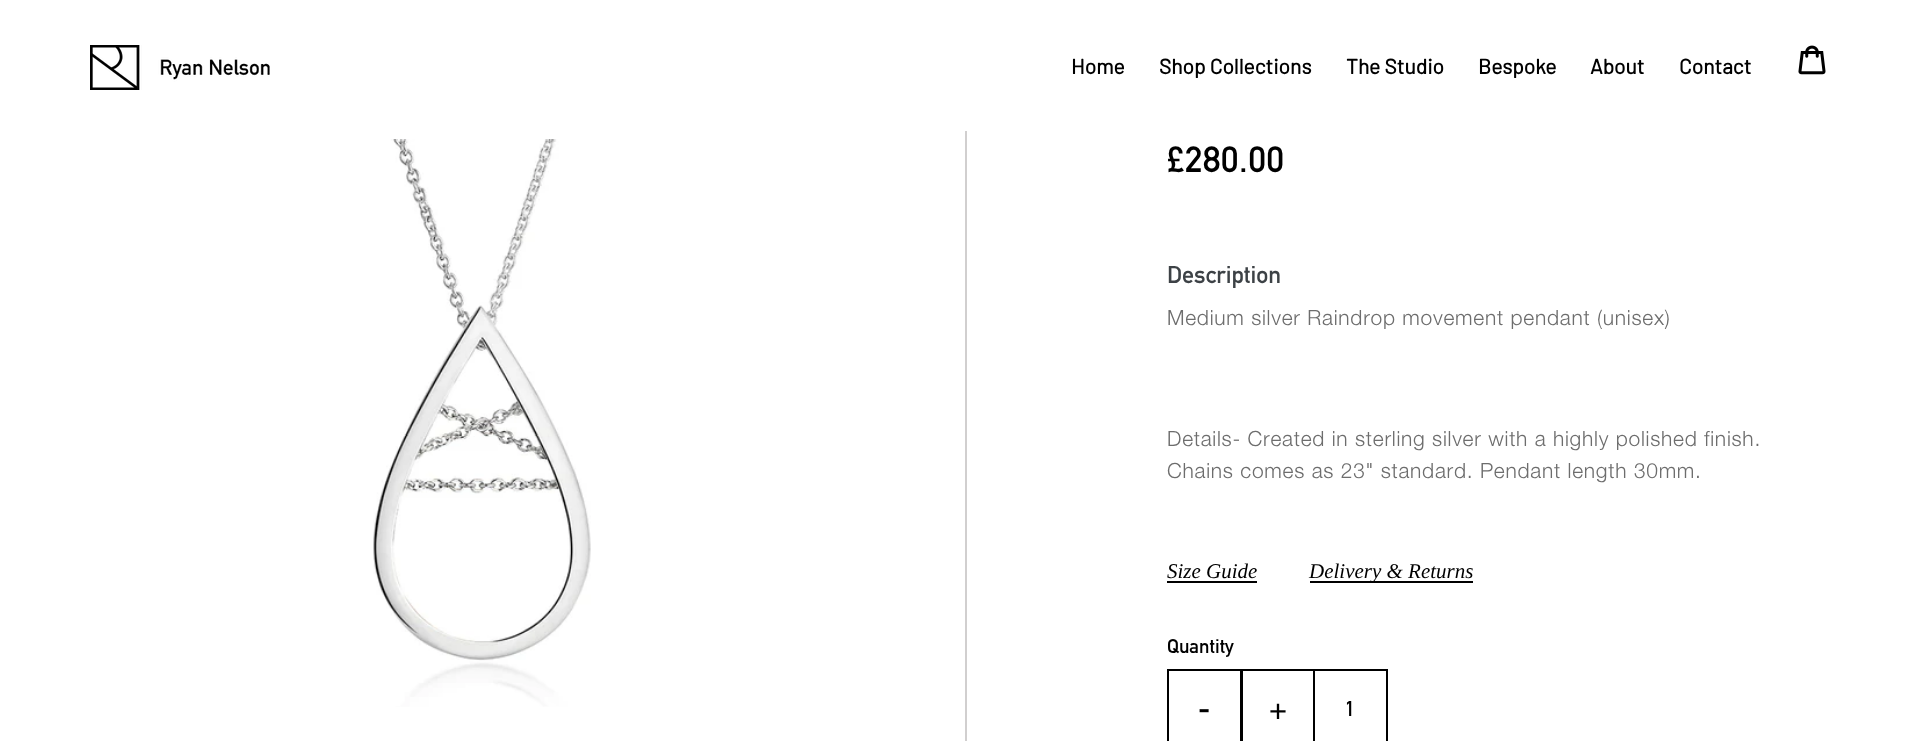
<!DOCTYPE html>
<meta charset="utf-8">
<style>body { margin: 0 } canvas { display: block }</style>
<canvas id="canvas" width="1930" height="741"></canvas>
<script type="module">
  const canvas = document.getElementById("canvas");
  const ctx = canvas.getContext("2d");
  ctx.miterLimit = 4;
  ctx.fontKerning = "normal";
  async function loadImage(src) {
    const img = new Image();
    img.src = src;
    await img.decode();
    return img;
  }

  ctx.fillStyle = "#ffffff";
  ctx.fillRect(0, 0, 1930, 741);
  ctx.drawImage(await loadImage("img1.png"), 90, 45, 180, 45);
  ctx.font = "bold 21px Barlow";
  ctx.fillStyle = "#000000";
  ctx.fillText("Home", 1071, 74);
  ctx.fillText("Shop Collections", 1159, 74);
  ctx.fillText("The Studio", 1346, 74);
  ctx.fillText("Bespoke", 1478, 74);
  ctx.fillText("About", 1590, 74);
  ctx.fillText("Contact", 1679, 74);
  ctx.drawImage(await loadImage("img2.png"), 1798, 45, 28, 30);
  ctx.fillStyle = "#d1cfcf";
  ctx.fillRect(965, 131, 2, 610);
  ctx.drawImage(await loadImage("img3.png"), 373, 139, 218, 568);
  ctx.letterSpacing = "0.75px";
  ctx.font = "bold 36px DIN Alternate";
  ctx.fillStyle = "#000000";
  ctx.fillText("£280.00", 1167, 172);
  ctx.letterSpacing = "0px";
  ctx.font = "bold 24px DIN Alternate";
  ctx.fillStyle = "#3d4246";
  ctx.fillText("Description", 1167, 283);
  ctx.letterSpacing = "0.75px";
  ctx.font = "300 21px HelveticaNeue";
  ctx.fillStyle = "#6d6d6d";
  ctx.fillText("Medium silver Raindrop movement pendant (unisex)", 1167, 325);
  ctx.fillText("Details- Created in sterling silver with a highly polished finish.", 1167, 446);
  ctx.fillText("Chains comes as 23\" standard. Pendant length 30mm.", 1167, 478);
  ctx.letterSpacing = "0px";
  ctx.font = "italic 21px Liberation Serif";
  ctx.fillStyle = "#000000";
  ctx.fillText("Size Guide", 1167, 578);
  ctx.fillRect(1167, 581, 90, 2);
  ctx.fillRect(1310, 581, 163, 2);
  ctx.fillText("Delivery & Returns", 1309, 578);
  ctx.font = "bold 19.5px DIN Alternate";
  ctx.fillText("Quantity", 1167, 653);
  ctx.strokeStyle = "#000000";
  ctx.lineWidth = 2;
  ctx.strokeRect(1168, 670, 73, 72);
  ctx.font = "bold 30px DIN Alternate";
  ctx.fillText("-", 1198, 719);
  ctx.strokeRect(1242, 670, 73, 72);
  ctx.fillText("+", 1269, 719);
  ctx.fillStyle = "#ffffff";
  ctx.fillRect(1315, 671, 1, 70);
  ctx.strokeRect(1314, 670, 73, 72);
  ctx.font = "bold 21px DIN Alternate";
  ctx.fillStyle = "#000000";
  ctx.fillText("1", 1345, 716);
</script>
